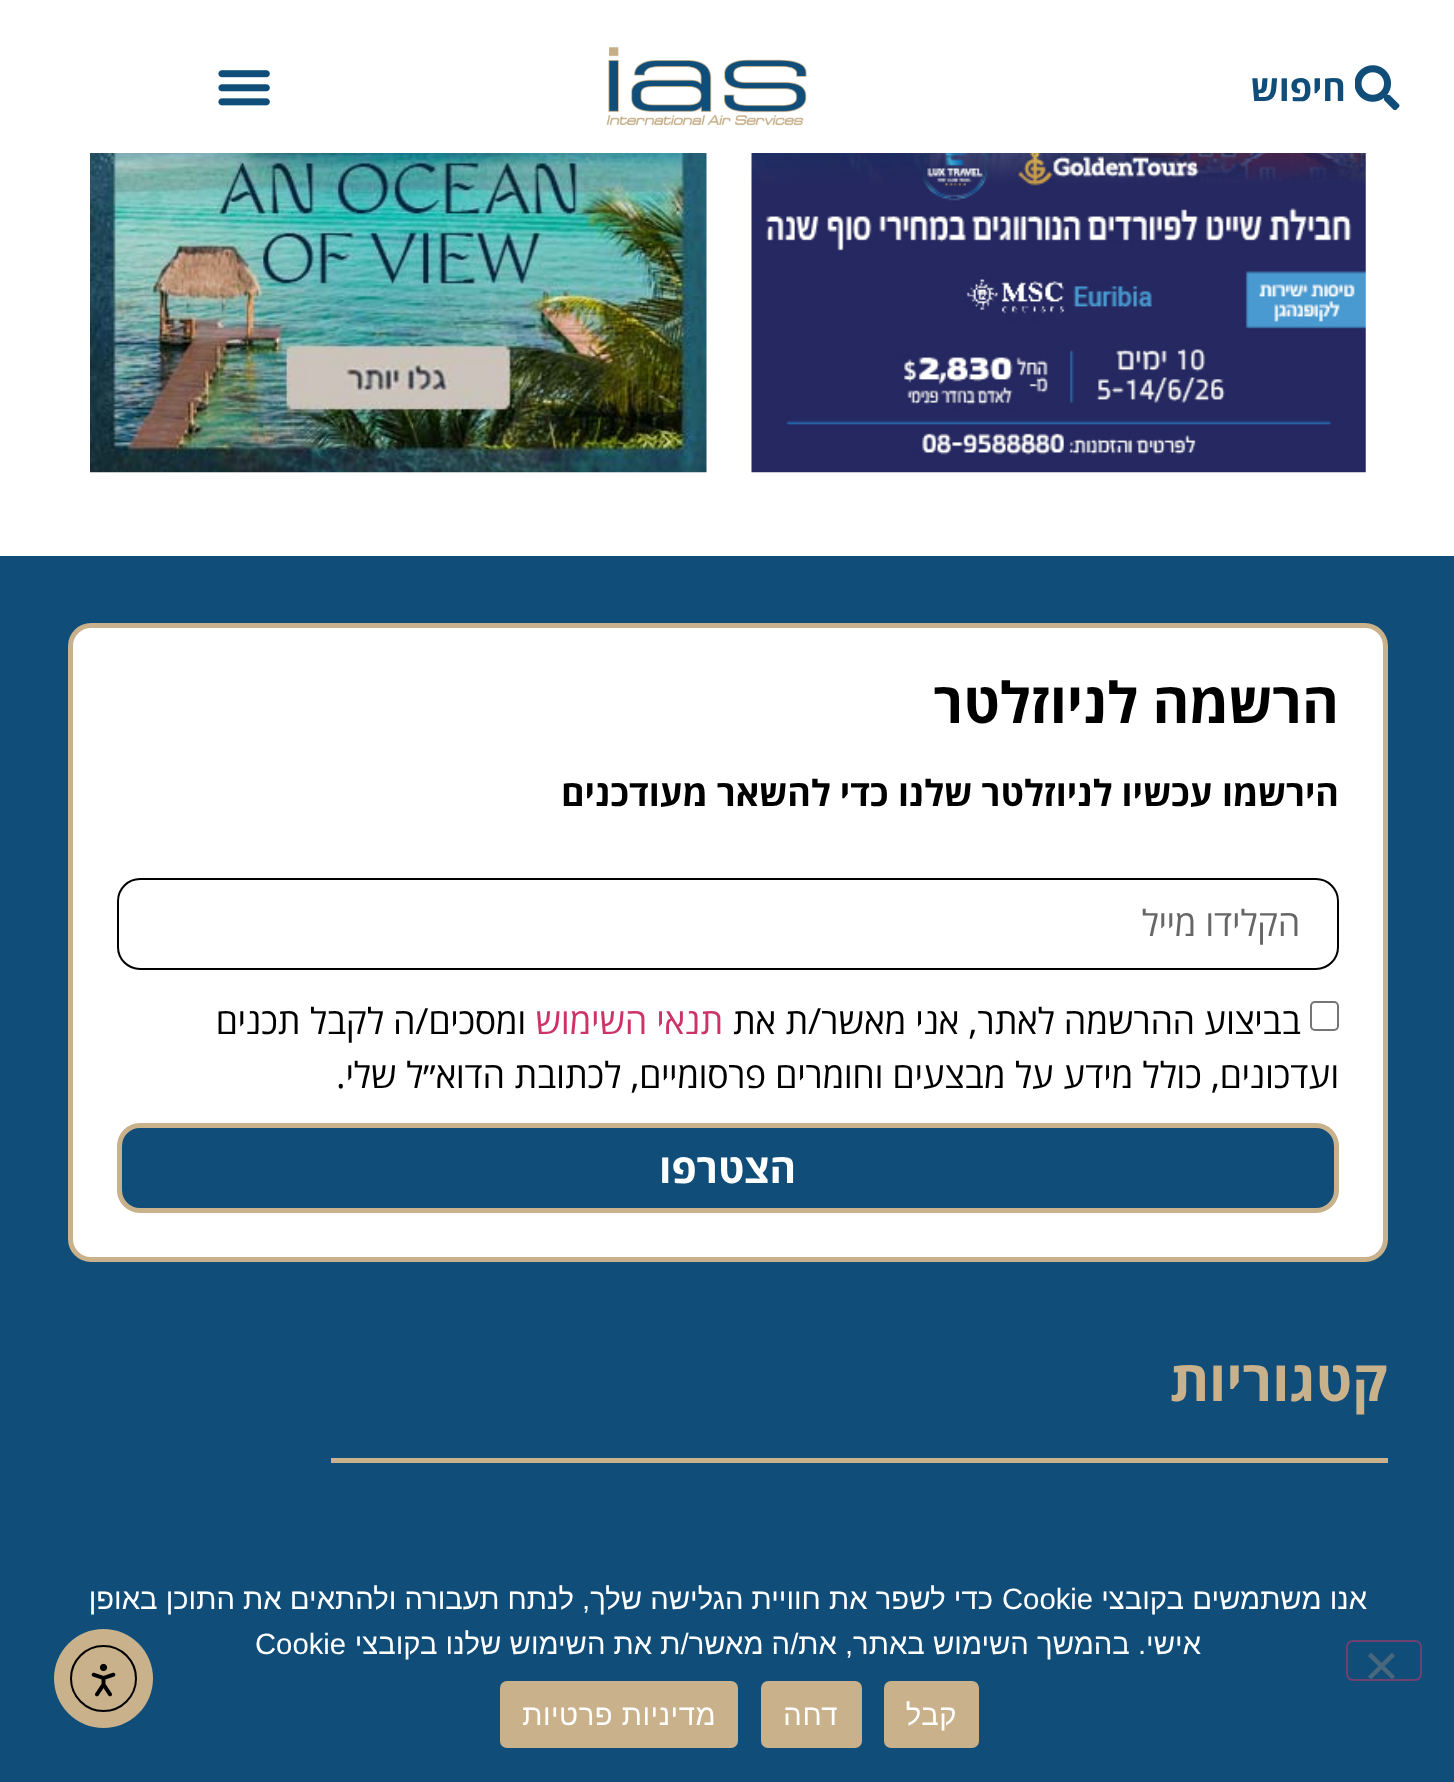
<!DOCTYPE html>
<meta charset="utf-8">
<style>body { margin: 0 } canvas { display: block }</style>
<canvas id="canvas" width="1454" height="1782"></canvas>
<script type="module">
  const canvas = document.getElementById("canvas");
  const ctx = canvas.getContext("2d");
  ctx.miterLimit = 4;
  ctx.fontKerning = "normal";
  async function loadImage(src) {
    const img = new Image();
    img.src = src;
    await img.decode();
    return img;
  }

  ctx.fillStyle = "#ffffff";
  ctx.fillRect(0, 0, 1454, 1782);
  ctx.drawImage(await loadImage("img1.png"), 1355, 65, 45, 45);
  ctx.direction = "rtl";
  ctx.font = "bold 36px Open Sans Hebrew";
  ctx.fillStyle = "#104e79";
  ctx.fillText("חיפוש", 1346, 101);
  ctx.drawImage(await loadImage("img2.png"), 606, 47, 201, 79);
  ctx.drawImage(await loadImage("img3.png"), 218, 70, 52, 36);
  ctx.drawImage(await loadImage("img4.png"), 751, 153, 615, 320);
  ctx.drawImage(await loadImage("img5.png"), 90, 153, 617, 320);
  ctx.fillRect(0, 556, 1454, 1226);
  ctx.fillStyle = "#ffffff";
  ctx.beginPath();
  ctx.roundRect(70.5, 625.5, 1315, 634, 20.5);
  ctx.fill();
  ctx.strokeStyle = "#c8b18b";
  ctx.lineWidth = 5;
  ctx.stroke();
  ctx.font = "bold 56.25px Open Sans Hebrew";
  ctx.fillStyle = "#000000";
  ctx.fillText("הרשמה לניוזלטר", 1339, 723);
  ctx.font = "bold 36px Open Sans Hebrew";
  ctx.fillText("הירשמו עכשיו לניוזלטר שלנו כדי להשאר מעודכנים", 1339, 806);
  ctx.beginPath();
  ctx.roundRect(118, 879, 1220, 90, 22);
  ctx.strokeStyle = "#000000";
  ctx.lineWidth = 2;
  ctx.stroke();
  ctx.font = "36px Open Sans Hebrew";
  ctx.fillStyle = "#666666";
  ctx.fillText("הקלידו מייל", 1300, 936);
  ctx.beginPath();
  ctx.roundRect(1311, 1002, 27, 28, 4);
  ctx.strokeStyle = "#767676";
  ctx.stroke();
  ctx.fillStyle = "#000000";
  ctx.fillText("בביצוע ההרשמה לאתר, אני מאשר/ת את", 1301, 1034);
  ctx.fillStyle = "#cc3366";
  ctx.fillText("תנאי השימוש", 723, 1034);
  ctx.fillStyle = "#000000";
  ctx.fillText("ומסכים/ה לקבל תכנים", 526, 1034);
  ctx.fillText("ועדכונים, כולל מידע על מבצעים וחומרים פרסומיים, לכתובת הדוא״ל שלי.", 1339, 1088);
  ctx.fillStyle = "#104e79";
  ctx.beginPath();
  ctx.roundRect(119.5, 1125.5, 1217, 85, 20.5);
  ctx.fill();
  ctx.strokeStyle = "#c8b18b";
  ctx.lineWidth = 5;
  ctx.stroke();
  ctx.font = "bold 40.5px Open Sans Hebrew";
  ctx.fillStyle = "#ffffff";
  ctx.fillText("הצטרפו", 796, 1183);
  ctx.font = "bold 56.25px Open Sans Hebrew";
  ctx.fillStyle = "#c8b18b";
  ctx.fillText("קטגוריות", 1388, 1401);
  ctx.fillRect(331, 1458, 1057, 5);
  ctx.beginPath();
  ctx.roundRect(1347, 1641, 74, 39, 6);
  ctx.strokeStyle = "#6e4170";
  ctx.lineWidth = 2;
  ctx.stroke();
  ctx.fillStyle = "#48677d";
  ctx.beginPath();
  ctx.moveTo(1392, 1652.5);
  ctx.lineTo(1395, 1656);
  ctx.lineTo(1371, 1679.5);
  ctx.lineTo(1368, 1676.5);
  ctx.closePath();
  ctx.fill();
  ctx.beginPath();
  ctx.moveTo(1368, 1656);
  ctx.lineTo(1371, 1652.5);
  ctx.lineTo(1395, 1676.5);
  ctx.lineTo(1392, 1679.5);
  ctx.closePath();
  ctx.fill();
  ctx.font = "29.25px Liberation Sans";
  ctx.fillStyle = "#ffffff";
  ctx.fillText("אנו משתמשים בקובצי", 1367, 1609);
  ctx.direction = "ltr";
  ctx.fillText("Cookie", 1002, 1609);
  ctx.direction = "rtl";
  ctx.fillText("כדי לשפר את חוויית הגלישה שלך, לנתח תעבורה ולהתאים את התוכן באופן", 993, 1609);
  ctx.fillText("אישי. בהמשך השימוש באתר, את/ה מאשר/ת את השימוש שלנו בקובצי", 1201, 1654);
  ctx.direction = "ltr";
  ctx.fillText("Cookie", 255, 1654);
  ctx.fillStyle = "#c8b18b";
  ctx.beginPath();
  ctx.roundRect(884, 1681, 95, 67, 7);
  ctx.fill();
  ctx.letterSpacing = "0.5px";
  ctx.direction = "rtl";
  ctx.fillStyle = "#ffffff";
  ctx.fillText("קבל", 957, 1725);
  ctx.fillStyle = "#c8b18b";
  ctx.beginPath();
  ctx.roundRect(761, 1681, 101, 67, 7);
  ctx.fill();
  ctx.fillStyle = "#ffffff";
  ctx.fillText("דחה", 838, 1725);
  ctx.fillStyle = "#c8b18b";
  ctx.beginPath();
  ctx.roundRect(500, 1681, 238, 67, 7);
  ctx.fill();
  ctx.fillStyle = "#ffffff";
  ctx.fillText("מדיניות פרטיות", 716, 1725);
  ctx.fillStyle = "#c8b18b";
  ctx.beginPath();
  ctx.arc(103.5, 1678.5, 49.5, 0, Math.PI * 2);
  ctx.fill();
  ctx.beginPath();
  ctx.arc(103.5, 1678.5, 32.5, 0, Math.PI * 2);
  ctx.strokeStyle = "#000000";
  ctx.stroke();
  ctx.drawImage(await loadImage("img6.png"), 91, 1663, 25, 34);
</script>
